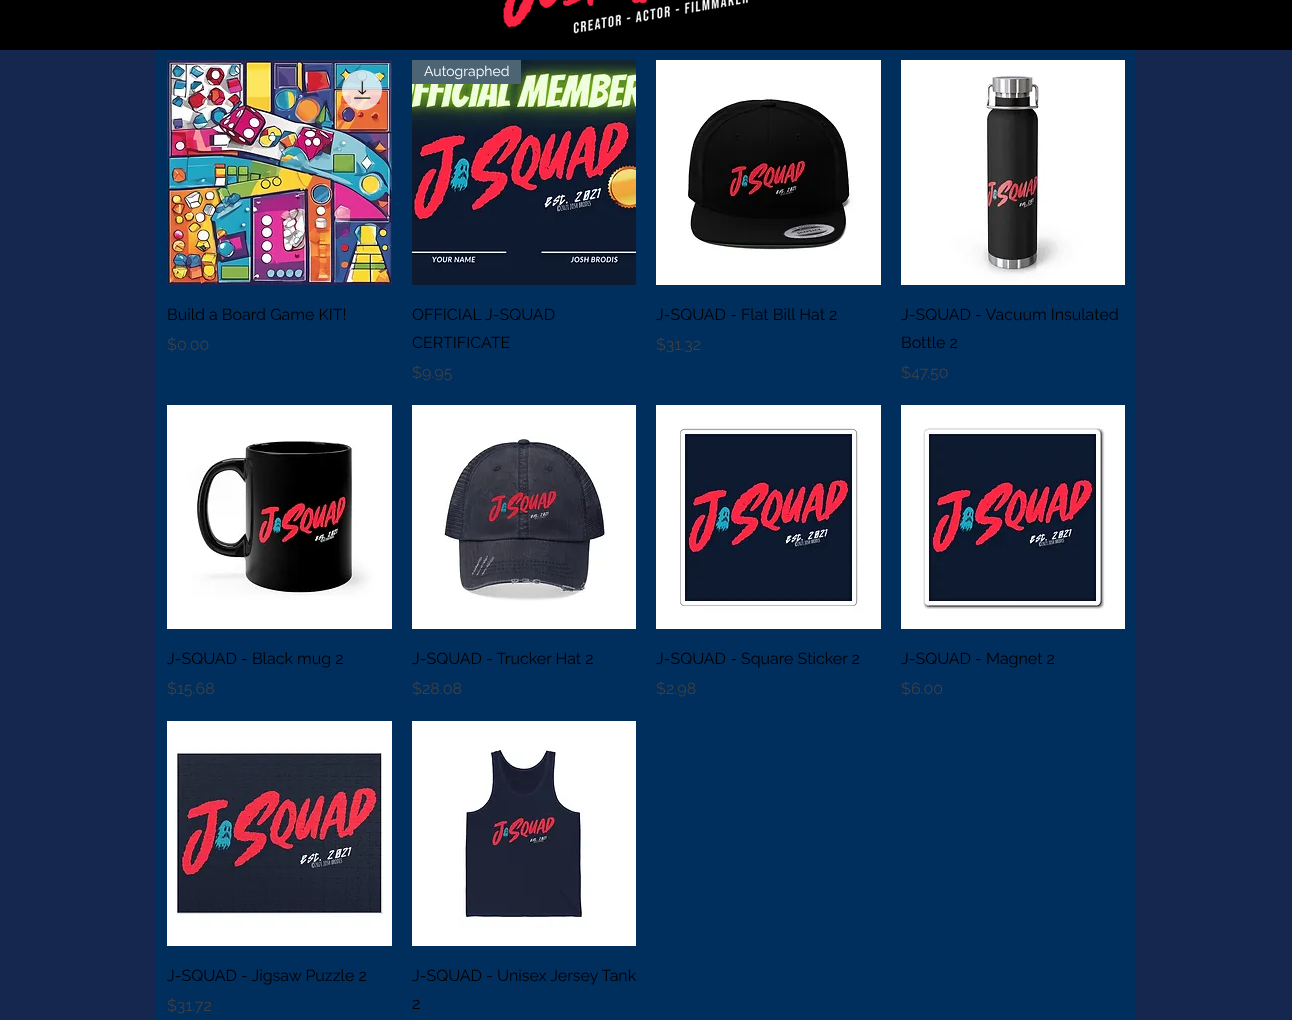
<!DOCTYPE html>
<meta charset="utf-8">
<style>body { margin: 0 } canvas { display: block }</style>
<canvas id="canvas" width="1292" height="1020"></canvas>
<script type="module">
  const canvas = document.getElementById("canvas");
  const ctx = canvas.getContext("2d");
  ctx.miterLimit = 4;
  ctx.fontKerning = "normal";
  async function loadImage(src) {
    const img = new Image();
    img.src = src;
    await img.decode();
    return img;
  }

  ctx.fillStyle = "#15264f";
  ctx.fillRect(0, 0, 1292, 1020);
  ctx.fillStyle = "#000000";
  ctx.fillRect(0, 0, 1292, 50);
  ctx.drawImage(await loadImage("img1.png"), 503, 0, 245, 34);
  ctx.fillStyle = "#002e5d";
  ctx.fillRect(156, 50, 980, 970);
  ctx.drawImage(await loadImage("img2.png"), 167, 60, 225, 225);
  ctx.fillStyle = "rgba(255, 255, 255, 0.75)";
  ctx.beginPath();
  ctx.arc(362, 90, 20, 0, Math.PI * 2);
  ctx.fill();
  ctx.drawImage(await loadImage("img3.png"), 354, 81, 17, 18);
  ctx.font = "16px Raleway";
  ctx.fillStyle = "#000000";
  ctx.fillText("Build a Board Game KIT!", 167, 320);
  ctx.fillStyle = "#404040";
  ctx.fillText("$0.00", 167, 350);
  ctx.drawImage(await loadImage("img4.png"), 412, 60, 224, 225);
  ctx.fillStyle = "#4c6474";
  ctx.fillRect(412, 60, 109, 24);
  ctx.font = "14px Raleway";
  ctx.fillStyle = "#ffffff";
  ctx.fillText("Autographed", 424, 76);
  ctx.font = "16px Raleway";
  ctx.fillStyle = "#000000";
  ctx.fillText("OFFICIAL J-SQUAD", 412, 320);
  ctx.fillText("CERTIFICATE", 412, 348);
  ctx.fillStyle = "#404040";
  ctx.fillText("$9.95", 412, 378);
  ctx.drawImage(await loadImage("img5.png"), 656, 60, 225, 225);
  ctx.fillStyle = "#000000";
  ctx.fillText("J-SQUAD - Flat Bill Hat 2", 656, 320);
  ctx.fillStyle = "#404040";
  ctx.fillText("$31.32", 656, 350);
  ctx.drawImage(await loadImage("img6.png"), 901, 60, 224, 225);
  ctx.fillStyle = "#000000";
  ctx.fillText("J-SQUAD - Vacuum Insulated", 901, 320);
  ctx.fillText("Bottle 2", 901, 348);
  ctx.fillStyle = "#404040";
  ctx.fillText("$47.50", 901, 378);
  ctx.drawImage(await loadImage("img7.png"), 167, 405, 225, 224);
  ctx.fillStyle = "#000000";
  ctx.fillText("J-SQUAD - Black mug 2", 167, 664);
  ctx.fillStyle = "#404040";
  ctx.fillText("$15.68", 167, 694);
  ctx.drawImage(await loadImage("img8.png"), 412, 405, 224, 224);
  ctx.fillStyle = "#000000";
  ctx.fillText("J-SQUAD - Trucker Hat 2", 412, 664);
  ctx.fillStyle = "#404040";
  ctx.fillText("$28.08", 412, 694);
  ctx.drawImage(await loadImage("img9.png"), 656, 405, 225, 224);
  ctx.fillStyle = "#000000";
  ctx.fillText("J-SQUAD - Square Sticker 2", 656, 664);
  ctx.fillStyle = "#404040";
  ctx.fillText("$2.98", 656, 694);
  ctx.drawImage(await loadImage("img10.png"), 901, 405, 224, 224);
  ctx.fillStyle = "#000000";
  ctx.fillText("J-SQUAD - Magnet 2", 901, 664);
  ctx.fillStyle = "#404040";
  ctx.fillText("$6.00", 901, 694);
  ctx.drawImage(await loadImage("img11.png"), 167, 721, 225, 225);
  ctx.fillStyle = "#000000";
  ctx.fillText("J-SQUAD - Jigsaw Puzzle 2", 167, 981);
  ctx.fillStyle = "#404040";
  ctx.fillText("$31.72", 167, 1011);
  ctx.drawImage(await loadImage("img12.png"), 412, 721, 224, 225);
  ctx.fillStyle = "#000000";
  ctx.fillText("J-SQUAD - Unisex Jersey Tank", 412, 981);
  ctx.fillText("2", 412, 1009);
</script>
